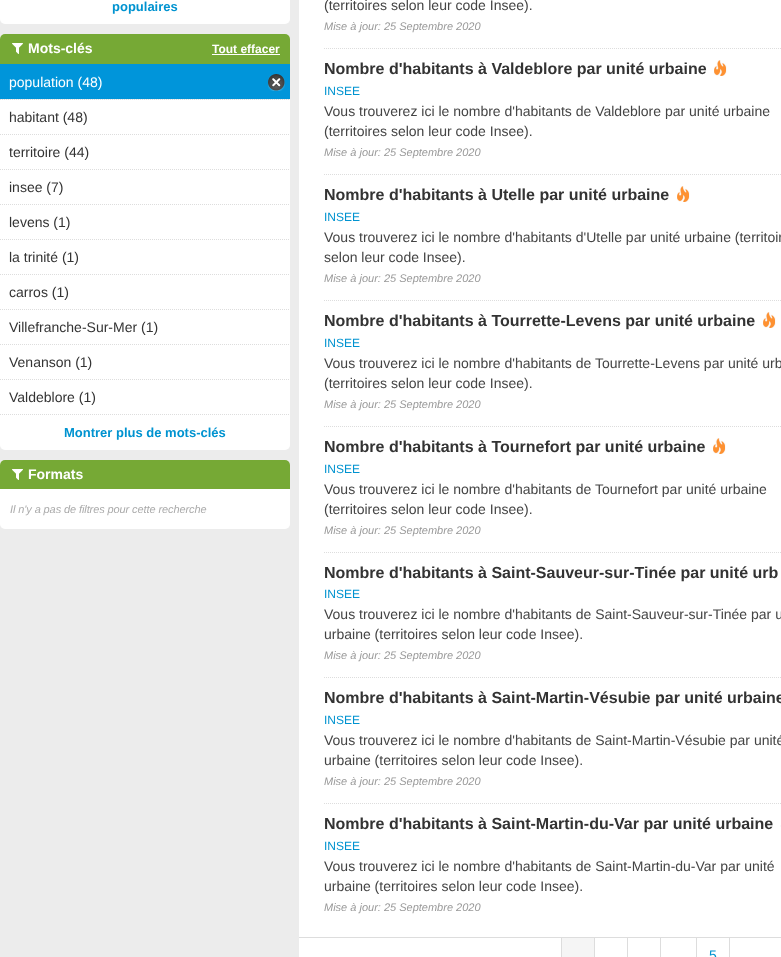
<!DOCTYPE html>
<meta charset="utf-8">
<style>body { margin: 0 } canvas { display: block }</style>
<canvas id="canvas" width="781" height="957"></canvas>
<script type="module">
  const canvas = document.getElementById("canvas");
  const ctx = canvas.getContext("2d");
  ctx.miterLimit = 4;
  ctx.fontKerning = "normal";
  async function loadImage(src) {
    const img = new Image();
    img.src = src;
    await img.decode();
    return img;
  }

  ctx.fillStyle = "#ececec";
  ctx.fillRect(0, 0, 781, 957);
  ctx.fillStyle = "#ffffff";
  ctx.beginPath();
  ctx.roundRect(0, -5, 290, 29, 5);
  ctx.fill();
  ctx.font = "bold 13px Liberation Sans";
  ctx.fillStyle = "#0093d0";
  ctx.fillText("populaires", 112, 11);
  ctx.fillStyle = "#ffffff";
  ctx.beginPath();
  ctx.roundRect(0, 34, 290, 416, 5);
  ctx.fill();
  ctx.fillStyle = "#76a935";
  ctx.beginPath();
  ctx.roundRect(0, 34, 290, 30, [5, 5, 0, 0]);
  ctx.fill();
  ctx.drawImage(await loadImage("img1.png"), 12, 43, 11, 11);
  ctx.font = "bold 14px Liberation Sans";
  ctx.fillStyle = "#ffffff";
  ctx.fillText("Mots-clés", 28, 53);
  ctx.font = "bold 12px Liberation Sans";
  ctx.fillText("Tout effacer", 212, 53);
  ctx.fillRect(212, 54, 68, 1);
  ctx.fillStyle = "#f6f6f6";
  ctx.fillRect(1, 99, 289, 1);
  ctx.beginPath();
  ctx.moveTo(0, 99.5);
  ctx.lineTo(290, 99.5);
  ctx.strokeStyle = "#dddddd";
  ctx.setLineDash([1, 1]);
  ctx.stroke();
  ctx.fillStyle = "#0095da";
  ctx.fillRect(0, 64, 290, 35);
  ctx.font = "14px Liberation Sans";
  ctx.fillStyle = "#ffffff";
  ctx.fillText("population (48)", 9, 87);
  ctx.drawImage(await loadImage("img2.png"), 268, 74, 17, 17);
  ctx.beginPath();
  ctx.moveTo(0, 134.5);
  ctx.lineTo(290, 134.5);
  ctx.stroke();
  ctx.fillStyle = "#333333";
  ctx.fillText("habitant (48)", 9, 122);
  ctx.beginPath();
  ctx.moveTo(0, 169.5);
  ctx.lineTo(290, 169.5);
  ctx.stroke();
  ctx.fillText("territoire (44)", 9, 157);
  ctx.beginPath();
  ctx.moveTo(0, 204.5);
  ctx.lineTo(290, 204.5);
  ctx.stroke();
  ctx.fillText("insee (7)", 9, 192);
  ctx.beginPath();
  ctx.moveTo(0, 239.5);
  ctx.lineTo(290, 239.5);
  ctx.stroke();
  ctx.fillText("levens (1)", 9, 227);
  ctx.beginPath();
  ctx.moveTo(0, 274.5);
  ctx.lineTo(290, 274.5);
  ctx.stroke();
  ctx.fillText("la trinité (1)", 9, 262);
  ctx.beginPath();
  ctx.moveTo(0, 309.5);
  ctx.lineTo(290, 309.5);
  ctx.stroke();
  ctx.fillText("carros (1)", 9, 297);
  ctx.beginPath();
  ctx.moveTo(0, 344.5);
  ctx.lineTo(290, 344.5);
  ctx.stroke();
  ctx.fillText("Villefranche-Sur-Mer (1)", 9, 332);
  ctx.beginPath();
  ctx.moveTo(0, 379.5);
  ctx.lineTo(290, 379.5);
  ctx.stroke();
  ctx.fillText("Venanson (1)", 9, 367);
  ctx.fillText("Valdeblore (1)", 9, 402);
  ctx.beginPath();
  ctx.moveTo(0, 414.5);
  ctx.lineTo(290, 414.5);
  ctx.stroke();
  ctx.font = "bold 13px Liberation Sans";
  ctx.fillStyle = "#0093d0";
  ctx.fillText("Montrer plus de mots-clés", 64, 437);
  ctx.fillStyle = "#ffffff";
  ctx.beginPath();
  ctx.roundRect(0, 460, 290, 69, 5);
  ctx.fill();
  ctx.fillStyle = "#76a935";
  ctx.beginPath();
  ctx.roundRect(0, 460, 290, 29, [5, 5, 0, 0]);
  ctx.fill();
  ctx.drawImage(await loadImage("img1.png"), 12, 469, 11, 11);
  ctx.font = "bold 14px Liberation Sans";
  ctx.fillStyle = "#ffffff";
  ctx.fillText("Formats", 28, 479);
  ctx.letterSpacing = "-0.1px";
  ctx.font = "italic 11px Liberation Sans";
  ctx.fillStyle = "#aaaaaa";
  ctx.fillText("Il n'y a pas de filtres pour cette recherche", 10, 513);
  ctx.fillStyle = "#ffffff";
  ctx.fillRect(299, 0, 482, 957);
  ctx.beginPath();
  ctx.moveTo(324, 48.5);
  ctx.lineTo(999, 48.5);
  ctx.stroke();
  ctx.letterSpacing = "0px";
  ctx.font = "14px Liberation Sans";
  ctx.fillStyle = "#444444";
  ctx.fillText("(territoires selon leur code Insee).", 324, 10);
  ctx.font = "italic 11px Liberation Sans";
  ctx.fillStyle = "#999999";
  ctx.fillText("Mise à jour: 25 Septembre 2020", 324, 30);
  ctx.beginPath();
  ctx.moveTo(324, 174.5);
  ctx.lineTo(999, 174.5);
  ctx.stroke();
  ctx.font = "bold 16px Liberation Sans";
  ctx.fillStyle = "#333333";
  ctx.fillText("Nombre d'habitants à Valdeblore par unité urbaine", 324, 74);
  ctx.drawImage(await loadImage("img3.png"), 714, 60, 13, 16);
  ctx.font = "12px Liberation Sans";
  ctx.fillStyle = "#0093d0";
  ctx.fillText("INSEE", 324, 95);
  ctx.font = "14px Liberation Sans";
  ctx.fillStyle = "#444444";
  ctx.fillText("Vous trouverez ici le nombre d'habitants de Valdeblore par unité urbaine", 324, 116);
  ctx.fillText("(territoires selon leur code Insee).", 324, 136);
  ctx.font = "italic 11px Liberation Sans";
  ctx.fillStyle = "#999999";
  ctx.fillText("Mise à jour: 25 Septembre 2020", 324, 156);
  ctx.beginPath();
  ctx.moveTo(324, 300.5);
  ctx.lineTo(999, 300.5);
  ctx.stroke();
  ctx.font = "bold 16px Liberation Sans";
  ctx.fillStyle = "#333333";
  ctx.fillText("Nombre d'habitants à Utelle par unité urbaine", 324, 200);
  ctx.drawImage(await loadImage("img3.png"), 677, 186, 13, 16);
  ctx.font = "12px Liberation Sans";
  ctx.fillStyle = "#0093d0";
  ctx.fillText("INSEE", 324, 221);
  ctx.font = "14px Liberation Sans";
  ctx.fillStyle = "#444444";
  ctx.fillText("Vous trouverez ici le nombre d'habitants d'Utelle par unité urbaine (territoir", 324, 242);
  ctx.fillText("selon leur code Insee).", 324, 262);
  ctx.font = "italic 11px Liberation Sans";
  ctx.fillStyle = "#999999";
  ctx.fillText("Mise à jour: 25 Septembre 2020", 324, 282);
  ctx.beginPath();
  ctx.moveTo(324, 426.5);
  ctx.lineTo(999, 426.5);
  ctx.stroke();
  ctx.font = "bold 16px Liberation Sans";
  ctx.fillStyle = "#333333";
  ctx.fillText("Nombre d'habitants à Tourrette-Levens par unité urbaine", 324, 326);
  ctx.drawImage(await loadImage("img3.png"), 763, 312, 13, 16);
  ctx.font = "12px Liberation Sans";
  ctx.fillStyle = "#0093d0";
  ctx.fillText("INSEE", 324, 347);
  ctx.font = "14px Liberation Sans";
  ctx.fillStyle = "#444444";
  ctx.fillText("Vous trouverez ici le nombre d'habitants de Tourrette-Levens par unité urb", 324, 368);
  ctx.fillText("(territoires selon leur code Insee).", 324, 388);
  ctx.font = "italic 11px Liberation Sans";
  ctx.fillStyle = "#999999";
  ctx.fillText("Mise à jour: 25 Septembre 2020", 324, 408);
  ctx.beginPath();
  ctx.moveTo(324, 552.5);
  ctx.lineTo(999, 552.5);
  ctx.stroke();
  ctx.font = "bold 16px Liberation Sans";
  ctx.fillStyle = "#333333";
  ctx.fillText("Nombre d'habitants à Tournefort par unité urbaine", 324, 452);
  ctx.drawImage(await loadImage("img3.png"), 713, 438, 13, 16);
  ctx.font = "12px Liberation Sans";
  ctx.fillStyle = "#0093d0";
  ctx.fillText("INSEE", 324, 473);
  ctx.font = "14px Liberation Sans";
  ctx.fillStyle = "#444444";
  ctx.fillText("Vous trouverez ici le nombre d'habitants de Tournefort par unité urbaine", 324, 494);
  ctx.fillText("(territoires selon leur code Insee).", 324, 514);
  ctx.font = "italic 11px Liberation Sans";
  ctx.fillStyle = "#999999";
  ctx.fillText("Mise à jour: 25 Septembre 2020", 324, 534);
  ctx.beginPath();
  ctx.moveTo(324, 677.5);
  ctx.lineTo(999, 677.5);
  ctx.stroke();
  ctx.font = "bold 16px Liberation Sans";
  ctx.fillStyle = "#333333";
  ctx.fillText("Nombre d'habitants à Saint-Sauveur-sur-Tinée par unité urb", 324, 578);
  ctx.font = "12px Liberation Sans";
  ctx.fillStyle = "#0093d0";
  ctx.fillText("INSEE", 324, 598);
  ctx.font = "14px Liberation Sans";
  ctx.fillStyle = "#444444";
  ctx.fillText("Vous trouverez ici le nombre d'habitants de Saint-Sauveur-sur-Tinée par u", 324, 619);
  ctx.fillText("urbaine (territoires selon leur code Insee).", 324, 639);
  ctx.font = "italic 11px Liberation Sans";
  ctx.fillStyle = "#999999";
  ctx.fillText("Mise à jour: 25 Septembre 2020", 324, 659);
  ctx.beginPath();
  ctx.moveTo(324, 803.5);
  ctx.lineTo(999, 803.5);
  ctx.stroke();
  ctx.font = "bold 16px Liberation Sans";
  ctx.fillStyle = "#333333";
  ctx.fillText("Nombre d'habitants à Saint-Martin-Vésubie par unité urbaine", 324, 703);
  ctx.font = "12px Liberation Sans";
  ctx.fillStyle = "#0093d0";
  ctx.fillText("INSEE", 324, 724);
  ctx.font = "14px Liberation Sans";
  ctx.fillStyle = "#444444";
  ctx.fillText("Vous trouverez ici le nombre d'habitants de Saint-Martin-Vésubie par unité", 324, 745);
  ctx.fillText("urbaine (territoires selon leur code Insee).", 324, 765);
  ctx.font = "italic 11px Liberation Sans";
  ctx.fillStyle = "#999999";
  ctx.fillText("Mise à jour: 25 Septembre 2020", 324, 785);
  ctx.font = "bold 16px Liberation Sans";
  ctx.fillStyle = "#333333";
  ctx.fillText("Nombre d'habitants à Saint-Martin-du-Var par unité urbaine", 324, 829);
  ctx.fillStyle = "#fafafa";
  ctx.fillRect(780, 825, 1, 2);
  ctx.font = "12px Liberation Sans";
  ctx.fillStyle = "#0093d0";
  ctx.fillText("INSEE", 324, 850);
  ctx.font = "14px Liberation Sans";
  ctx.fillStyle = "#444444";
  ctx.fillText("Vous trouverez ici le nombre d'habitants de Saint-Martin-du-Var par unité", 324, 871);
  ctx.fillText("urbaine (territoires selon leur code Insee).", 324, 891);
  ctx.font = "italic 11px Liberation Sans";
  ctx.fillStyle = "#999999";
  ctx.fillText("Mise à jour: 25 Septembre 2020", 324, 911);
  ctx.fillStyle = "#dddddd";
  ctx.fillRect(299, 937, 482, 1);
  ctx.fillStyle = "#f5f5f5";
  ctx.fillRect(562, 938, 32, 19);
  ctx.fillStyle = "#dddddd";
  ctx.fillRect(594, 938, 1, 19);
  ctx.fillRect(561, 938, 1, 19);
  ctx.fillRect(627, 938, 1, 19);
  ctx.fillRect(660, 938, 1, 19);
  ctx.fillRect(696, 938, 1, 19);
  ctx.fillRect(729, 938, 1, 19);
  ctx.font = "14px Liberation Sans";
  ctx.fillStyle = "#0093d0";
  ctx.fillText("5", 709, 960);
</script>
